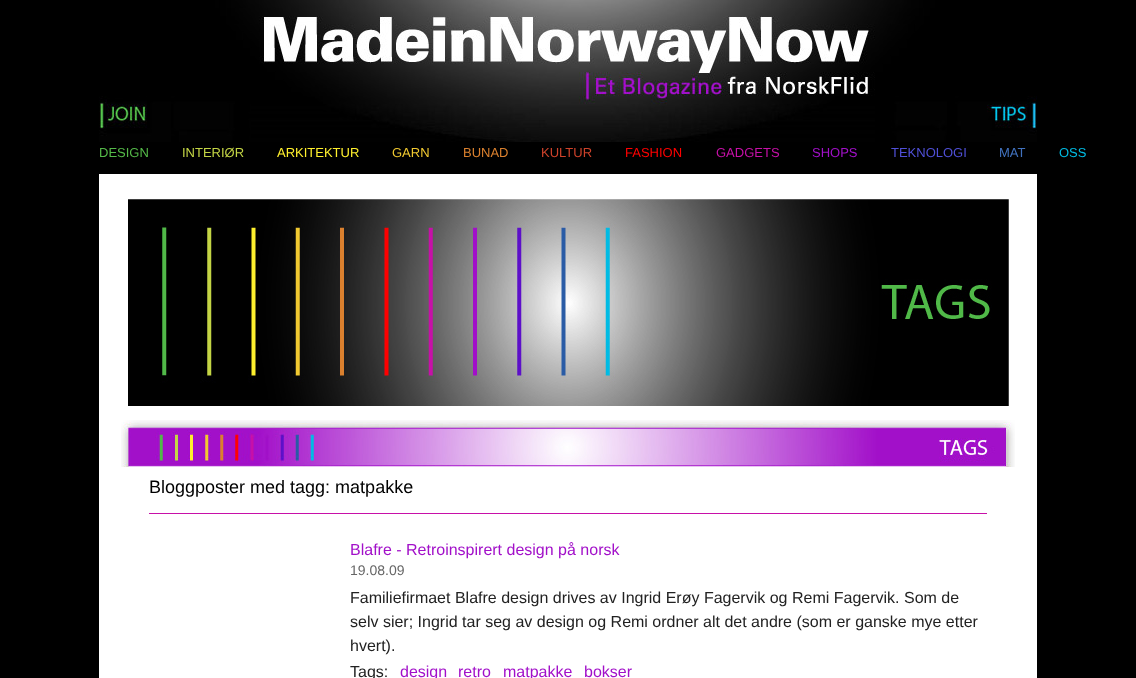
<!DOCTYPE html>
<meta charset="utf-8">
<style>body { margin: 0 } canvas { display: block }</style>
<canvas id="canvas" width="1136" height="678"></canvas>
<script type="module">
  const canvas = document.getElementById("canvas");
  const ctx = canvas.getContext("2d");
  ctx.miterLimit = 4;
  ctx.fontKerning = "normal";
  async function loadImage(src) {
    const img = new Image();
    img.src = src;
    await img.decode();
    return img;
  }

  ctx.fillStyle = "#000000";
  ctx.fillRect(0, 0, 1136, 678);
  ctx.fillStyle = "#ffffff";
  ctx.fillRect(99, 174, 938, 504);
  ctx.drawImage(await loadImage("img1.png"), 99, 0, 938, 142);
  ctx.font = "13px Liberation Sans";
  ctx.fillStyle = "#54b948";
  ctx.fillText("DESIGN", 99, 157);
  ctx.fillStyle = "#c4d545";
  ctx.fillText("INTERIØR", 182, 157);
  ctx.fillStyle = "#fff02d";
  ctx.fillText("ARKITEKTUR", 277, 157);
  ctx.fillStyle = "#f1c930";
  ctx.fillText("GARN", 392, 157);
  ctx.fillStyle = "#da802e";
  ctx.fillText("BUNAD", 463, 157);
  ctx.fillStyle = "#ce422a";
  ctx.fillText("KULTUR", 541, 157);
  ctx.fillStyle = "#ff0000";
  ctx.fillText("FASHION", 625, 157);
  ctx.fillStyle = "#c710a8";
  ctx.fillText("GADGETS", 716, 157);
  ctx.fillStyle = "#a210c9";
  ctx.fillText("SHOPS", 812, 157);
  ctx.fillStyle = "#5050d8";
  ctx.fillText("TEKNOLOGI", 891, 157);
  ctx.fillStyle = "#4172bf";
  ctx.fillText("MAT", 999, 157);
  ctx.fillStyle = "#00bce4";
  ctx.fillText("OSS", 1059, 157);
  ctx.drawImage(await loadImage("img2.png"), 128, 199, 881, 207);
  ctx.drawImage(await loadImage("img3.png"), 121, 420, 894, 47);
  ctx.font = "18px Liberation Sans";
  ctx.fillStyle = "#000000";
  ctx.fillText("Bloggposter med tagg: matpakke", 149, 493);
  ctx.fillStyle = "#c710a8";
  ctx.fillRect(149, 513, 838, 1);
  ctx.font = "16px Liberation Sans";
  ctx.fillStyle = "#a210c9";
  ctx.fillText("Blafre - Retroinspirert design på norsk", 350, 555);
  ctx.font = "14px Liberation Sans";
  ctx.fillStyle = "#666666";
  ctx.fillText("19.08.09", 350, 575);
  ctx.font = "16px Liberation Sans";
  ctx.fillStyle = "#222222";
  ctx.fillText("Familiefirmaet Blafre design drives av Ingrid Erøy Fagervik og Remi Fagervik. Som de", 350, 603);
  ctx.fillText("selv sier; Ingrid tar seg av design og Remi ordner alt det andre (som er ganske mye etter", 350, 627);
  ctx.fillText("hvert).", 350, 651);
  ctx.fillText("Tags:", 350, 677);
  ctx.fillStyle = "#a210c9";
  ctx.fillText("design", 400, 677);
  ctx.fillText("retro", 458, 677);
  ctx.fillText("matpakke", 503, 677);
  ctx.fillText("bokser", 584, 677);
</script>
